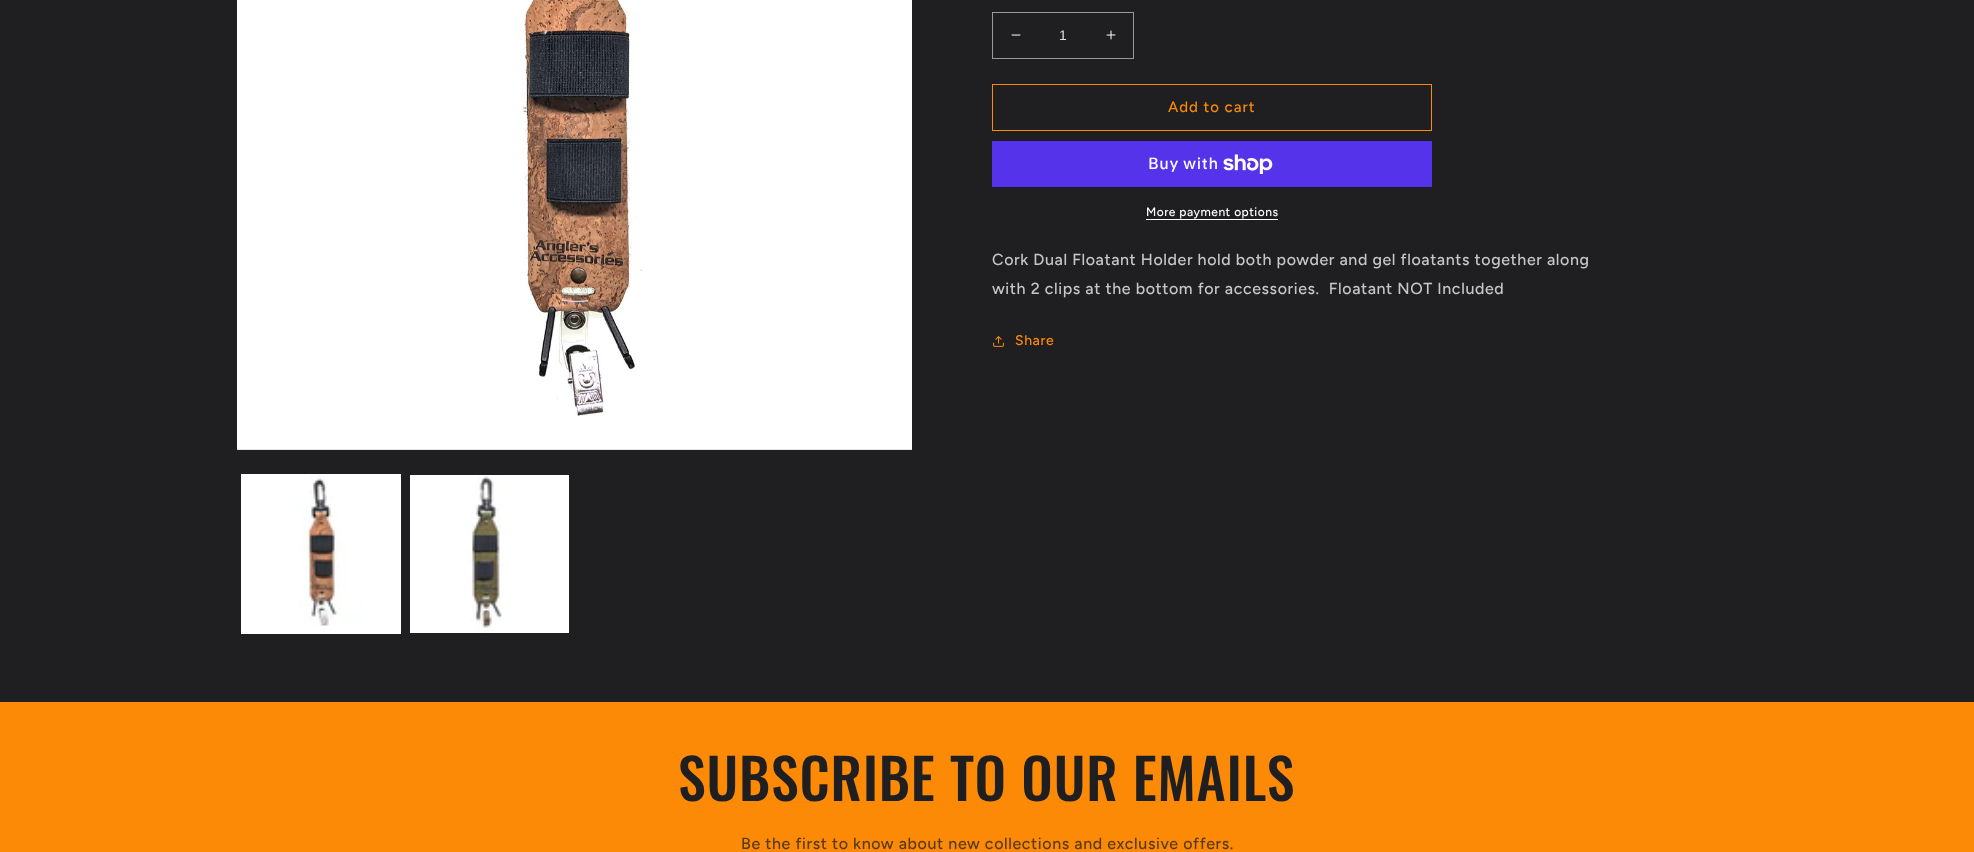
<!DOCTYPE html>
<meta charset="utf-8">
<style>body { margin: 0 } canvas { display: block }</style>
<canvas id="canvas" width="1974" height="852"></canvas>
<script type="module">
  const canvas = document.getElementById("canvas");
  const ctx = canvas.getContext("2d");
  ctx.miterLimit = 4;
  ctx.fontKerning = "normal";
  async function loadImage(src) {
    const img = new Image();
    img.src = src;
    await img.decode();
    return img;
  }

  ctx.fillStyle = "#1f1f21";
  ctx.fillRect(0, 0, 1974, 852);
  ctx.drawImage(await loadImage("img1.png"), 237, 0, 675, 450);
  ctx.strokeStyle = "#ffffff";
  ctx.strokeRect(241.5, 474.5, 159, 159);
  ctx.drawImage(await loadImage("img2.png"), 242, 475, 158, 158);
  ctx.drawImage(await loadImage("img3.png"), 410, 475, 159, 158);
  ctx.drawImage(await loadImage("img4.png"), 1011, 34, 10, 2);
  ctx.drawImage(await loadImage("img5.png"), 1106, 30, 10, 10);
  ctx.strokeStyle = "#9a9a9b";
  ctx.strokeRect(992.5, 12.5, 141, 46);
  ctx.font = "14px Liberation Sans";
  ctx.fillStyle = "#ddddde";
  ctx.fillText("1", 1059, 40);
  ctx.strokeStyle = "#fc8a06";
  ctx.strokeRect(992.5, 84.5, 439, 46);
  ctx.letterSpacing = "1px";
  ctx.font = "500 15px Figtree";
  ctx.fillStyle = "#fc8a06";
  ctx.fillText("Add to cart", 1168, 112);
  ctx.fillStyle = "#5433eb";
  ctx.fillRect(992, 141, 440, 46);
  ctx.letterSpacing = "0.6px";
  ctx.font = "500 16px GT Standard";
  ctx.fillStyle = "#ffffff";
  ctx.fillText("Buy with", 1148, 169);
  ctx.drawImage(await loadImage("img6.png"), 1223, 154, 50, 20);
  ctx.letterSpacing = "0.5px";
  ctx.font = "500 12px Figtree";
  ctx.fillText("More payment options", 1146, 216);
  ctx.fillRect(1146, 219, 132, 1);
  ctx.letterSpacing = "0.6px";
  ctx.font = "500 16px Figtree";
  ctx.fillStyle = "#c7c7c8";
  ctx.fillText("Cork Dual Floatant Holder hold both powder and gel floatants together along", 992, 265);
  ctx.fillText("with 2 clips at the bottom for accessories.  Floatant NOT Included", 992, 294);
  ctx.drawImage(await loadImage("img7.png"), 993, 336, 11, 11);
  ctx.font = "500 14px Figtree";
  ctx.fillStyle = "#fc8a06";
  ctx.fillText("Share", 1015, 345);
  ctx.fillRect(0, 702, 1974, 150);
  ctx.letterSpacing = "0.8px";
  ctx.font = "500 56px Oswald";
  ctx.fillStyle = "#1f1f21";
  ctx.fillText("SUBSCRIBE TO OUR EMAILS", 678, 801);
  ctx.letterSpacing = "0.6px";
  ctx.font = "500 16px Figtree";
  ctx.fillStyle = "#563a1a";
  ctx.fillText("Be the first to know about new collections and exclusive offers.", 741, 849);
</script>
